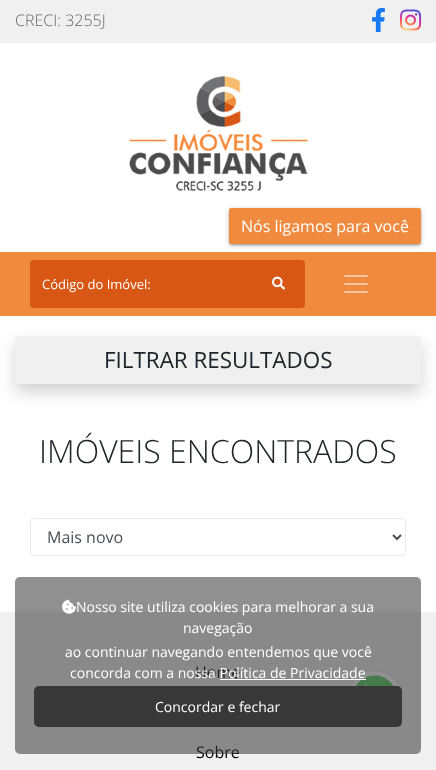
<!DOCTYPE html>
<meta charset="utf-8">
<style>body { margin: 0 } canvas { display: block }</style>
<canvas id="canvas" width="436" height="770"></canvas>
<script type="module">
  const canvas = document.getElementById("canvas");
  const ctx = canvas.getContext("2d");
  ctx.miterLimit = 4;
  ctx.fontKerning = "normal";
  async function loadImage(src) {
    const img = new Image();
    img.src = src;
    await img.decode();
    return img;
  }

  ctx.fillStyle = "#ffffff";
  ctx.fillRect(0, 0, 436, 770);
  ctx.fillStyle = "#f0f0f0";
  ctx.fillRect(0, 0, 436, 43);
  ctx.font = "300 16px Open Sans";
  ctx.fillStyle = "#666666";
  ctx.fillText("CRECI: 3255J", 15, 26);
  ctx.drawImage(await loadImage("img1.png"), 372, 8, 13, 24);
  ctx.drawImage(await loadImage("img2.png"), 400, 9, 22, 22);
  ctx.drawImage(await loadImage("img3.png"), 129, 76, 179, 115);
  ctx.fillStyle = "#f08a3f";
  ctx.fillRect(0, 252, 436, 64);
  ctx.fillStyle = "rgba(0, 0, 0, 0.2)";
  ctx.filter = "blur(2.5px)";
  ctx.beginPath();
  ctx.roundRect(229, 209, 192, 36, 2);
  ctx.fill();
  ctx.filter = "none";
  ctx.fillStyle = "rgba(0, 0, 0, 0.12)";
  ctx.filter = "blur(0.5px)";
  ctx.beginPath();
  ctx.rect(231, 213, 188, 32);
  ctx.fill();
  ctx.filter = "none";
  ctx.fillStyle = "rgba(0, 0, 0, 0.14)";
  ctx.filter = "blur(1px)";
  ctx.beginPath();
  ctx.roundRect(229, 210, 192, 36, 2);
  ctx.fill();
  ctx.filter = "none";
  ctx.fillStyle = "#f08a3f";
  ctx.beginPath();
  ctx.roundRect(229, 208, 192, 36, 2);
  ctx.fill();
  ctx.font = "16px Open Sans";
  ctx.fillStyle = "#ffffff";
  ctx.fillText("Nós ligamos para você", 241, 232);
  ctx.fillStyle = "#d85715";
  ctx.beginPath();
  ctx.roundRect(30, 260, 275, 48, 4);
  ctx.fill();
  ctx.font = "13px Open Sans";
  ctx.fillStyle = "#ffffff";
  ctx.fillText("Código do Imóvel:", 42, 289);
  ctx.drawImage(await loadImage("img4.png"), 272, 276, 13, 14);
  ctx.drawImage(await loadImage("img5.png"), 344, 275, 24, 18);
  ctx.fillStyle = "rgba(0, 0, 0, 0.18)";
  ctx.filter = "blur(8px)";
  ctx.beginPath();
  ctx.roundRect(15, 344, 406, 48, 4);
  ctx.fill();
  ctx.filter = "none";
  ctx.fillStyle = "#f0f0f0";
  ctx.beginPath();
  ctx.roundRect(15, 336, 406, 48, 4);
  ctx.fill();
  ctx.font = "22.4px Open Sans";
  ctx.fillStyle = "#212529";
  ctx.fillText("FILTRAR RESULTADOS", 104, 368);
  ctx.font = "300 32px Open Sans";
  ctx.fillText("IMÓVEIS ENCONTRADOS", 39, 463);
  ctx.beginPath();
  ctx.roundRect(30.5, 518.5, 375, 37, 3.5);
  ctx.strokeStyle = "#e9ecef";
  ctx.stroke();
  ctx.beginPath();
  ctx.moveTo(393, 535);
  ctx.lineTo(397, 539);
  ctx.lineTo(401, 535);
  ctx.strokeStyle = "#495057";
  ctx.lineWidth = 2;
  ctx.stroke();
  ctx.font = "16px Open Sans";
  ctx.fillStyle = "#495057";
  ctx.fillText("Mais novo", 47, 543);
  ctx.fillStyle = "#f0f0f0";
  ctx.fillRect(0, 612, 436, 158);
  ctx.fillStyle = "#000000";
  ctx.fillText("Home", 195, 678);
  ctx.fillText("Sobre", 196, 758);
  ctx.drawImage(await loadImage("img7.png"), 350, 670, 53, 30);
  ctx.fillStyle = "rgba(58, 57, 57, 0.56)";
  ctx.beginPath();
  ctx.roundRect(15, 577, 406, 177, 5);
  ctx.fill();
  ctx.drawImage(await loadImage("img6.png"), 62, 599, 14, 15);
  ctx.font = "14px Open Sans";
  ctx.fillStyle = "#ffffff";
  ctx.fillText("Nosso site utiliza cookies para melhorar a sua", 76, 612);
  ctx.fillText("navegação", 183, 633);
  ctx.fillText("ao continuar navegando entendemos que você", 65, 657);
  ctx.fillText("concorda com a nossa Política de Privacidade", 70, 678);
  ctx.fillRect(220, 679, 146, 1);
  ctx.fillStyle = "#383838";
  ctx.beginPath();
  ctx.roundRect(34, 686, 368, 41, 5);
  ctx.fill();
  ctx.fillStyle = "#ffffff";
  ctx.fillText("Concordar e fechar", 155, 712);
</script>
